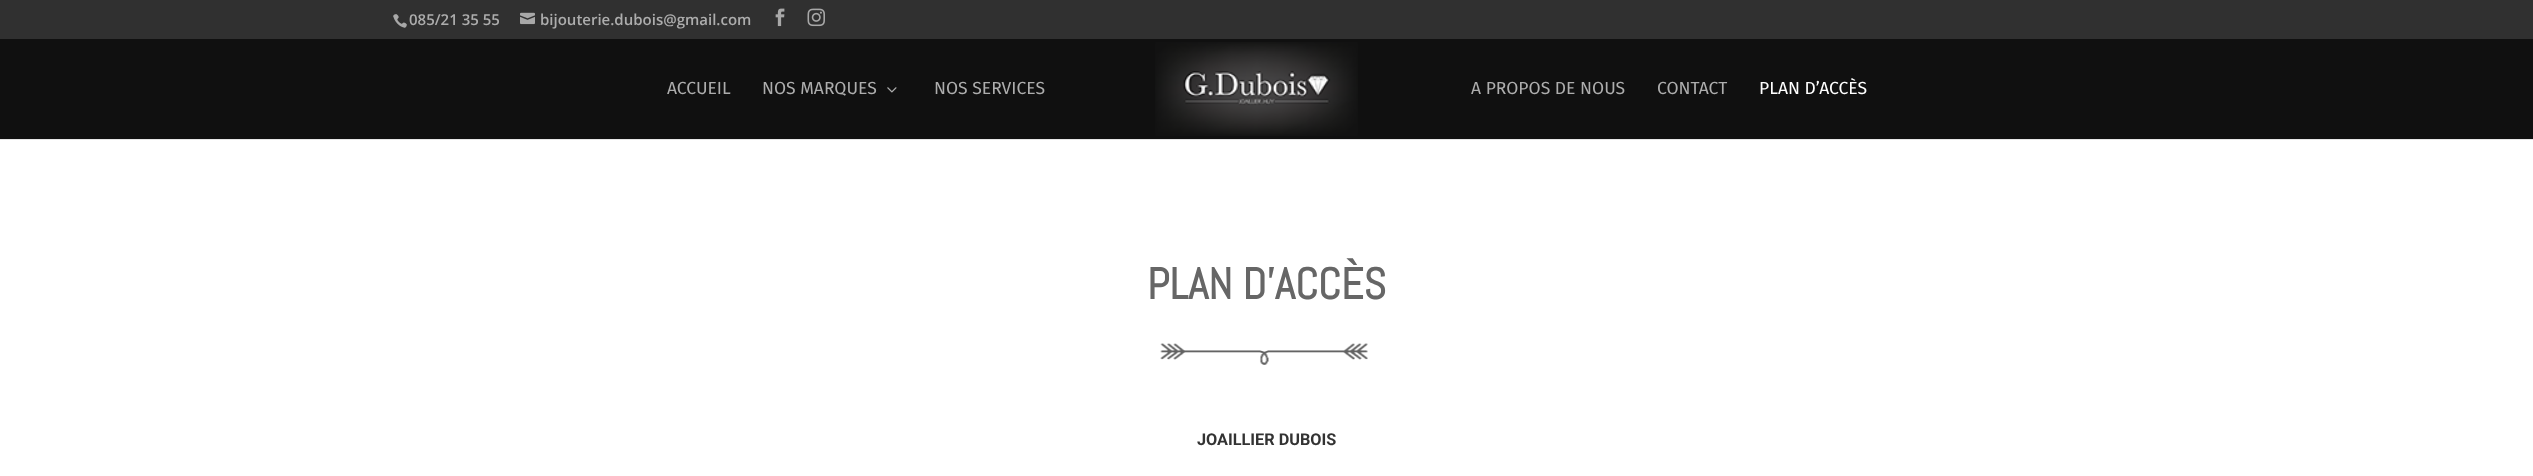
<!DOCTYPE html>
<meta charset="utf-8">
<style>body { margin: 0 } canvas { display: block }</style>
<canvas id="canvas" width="2533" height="476"></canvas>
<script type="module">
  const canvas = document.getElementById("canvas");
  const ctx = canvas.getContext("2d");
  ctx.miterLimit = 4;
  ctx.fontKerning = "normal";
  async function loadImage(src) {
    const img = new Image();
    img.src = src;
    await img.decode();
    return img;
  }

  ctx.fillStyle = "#ffffff";
  ctx.fillRect(0, 0, 2533, 476);
  ctx.fillStyle = "#303030";
  ctx.fillRect(0, 0, 2533, 39);
  ctx.drawImage(await loadImage("img1.png"), 393, 14, 14, 14);
  ctx.font = "600 15px Open Sans";
  ctx.fillStyle = "#adadad";
  ctx.fillText("085/21 35 55", 409, 25);
  ctx.drawImage(await loadImage("img2.png"), 520, 12, 15, 13);
  ctx.fillText("bijouterie.dubois@gmail.com", 540, 25);
  ctx.drawImage(await loadImage("img3.png"), 775, 8, 10, 19);
  ctx.drawImage(await loadImage("img4.png"), 807, 8, 18, 19);
  ctx.fillStyle = "#e6e6e6";
  ctx.beginPath();
  ctx.moveTo(0, 139);
  ctx.lineTo(0, 140);
  ctx.lineTo(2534, 140);
  ctx.lineTo(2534, 40);
  ctx.lineTo(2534, 139);
  ctx.closePath();
  ctx.fill();
  ctx.fillStyle = "#101010";
  ctx.fillRect(0, 39, 2533, 100);
  ctx.font = "17.5px Fira Sans";
  ctx.fillStyle = "#adadad";
  ctx.fillText("ACCUEIL", 667, 94);
  ctx.fillText("NOS MARQUES", 762, 94);
  ctx.drawImage(await loadImage("img5.png"), 887, 87, 10, 6);
  ctx.fillText("NOS SERVICES", 934, 94);
  ctx.drawImage(await loadImage("img6.png"), 1155, 42, 203, 94);
  ctx.fillText("A PROPOS DE NOUS", 1471, 94);
  ctx.fillText("CONTACT", 1657, 94);
  ctx.fillStyle = "#ffffff";
  ctx.fillText("PLAN D’ACCÈS", 1759, 94);
  ctx.font = "bold 43.75px Abel";
  ctx.fillStyle = "#666666";
  ctx.fillText("PLAN D’ACCÈS", 1147, 299);
  ctx.drawImage(await loadImage("img7.png"), 1160, 343, 208, 22);
  ctx.font = "bold 16.25px Roboto";
  ctx.fillStyle = "#333333";
  ctx.fillText("JOAILLIER DUBOIS", 1197, 445);
</script>
